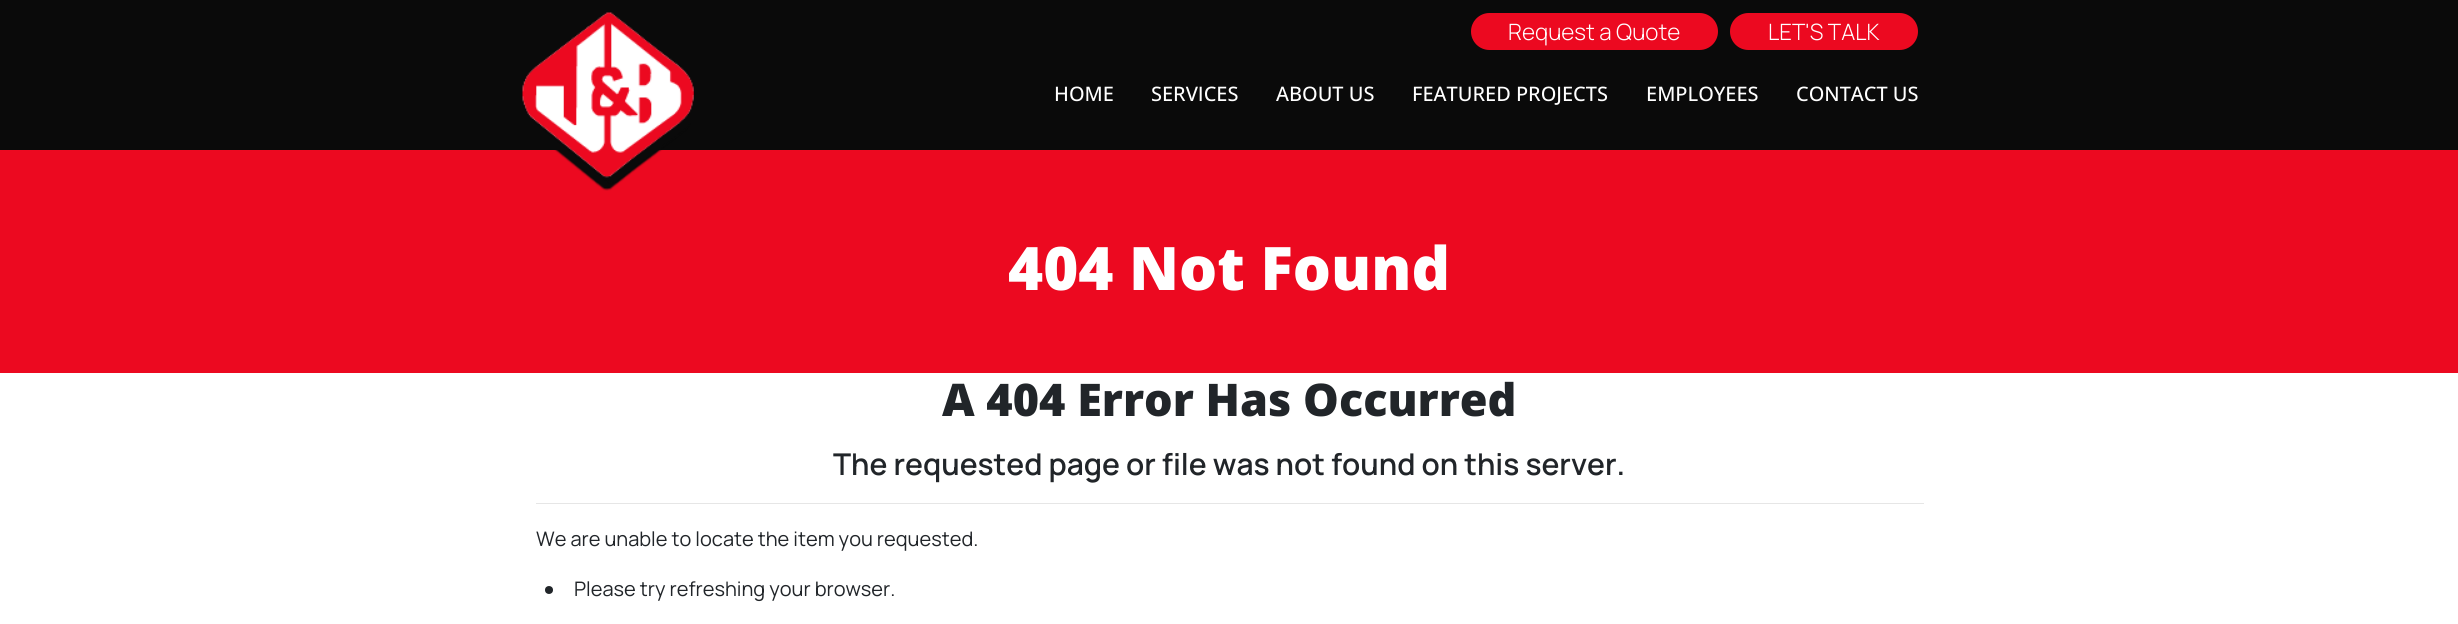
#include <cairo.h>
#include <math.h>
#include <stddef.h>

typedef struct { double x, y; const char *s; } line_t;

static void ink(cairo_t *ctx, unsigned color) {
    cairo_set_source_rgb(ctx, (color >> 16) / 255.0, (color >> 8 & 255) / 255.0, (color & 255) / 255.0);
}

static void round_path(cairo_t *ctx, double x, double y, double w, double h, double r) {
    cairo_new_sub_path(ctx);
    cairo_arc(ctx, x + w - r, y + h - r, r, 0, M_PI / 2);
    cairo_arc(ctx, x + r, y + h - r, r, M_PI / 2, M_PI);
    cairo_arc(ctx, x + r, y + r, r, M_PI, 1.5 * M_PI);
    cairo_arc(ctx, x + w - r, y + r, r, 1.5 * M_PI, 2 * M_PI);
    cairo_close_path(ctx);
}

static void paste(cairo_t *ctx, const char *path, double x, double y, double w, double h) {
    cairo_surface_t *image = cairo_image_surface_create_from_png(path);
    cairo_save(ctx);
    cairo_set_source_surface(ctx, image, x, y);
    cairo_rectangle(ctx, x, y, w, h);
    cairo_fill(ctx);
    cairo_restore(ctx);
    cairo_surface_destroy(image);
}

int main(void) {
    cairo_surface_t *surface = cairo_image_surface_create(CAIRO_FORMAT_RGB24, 2458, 624);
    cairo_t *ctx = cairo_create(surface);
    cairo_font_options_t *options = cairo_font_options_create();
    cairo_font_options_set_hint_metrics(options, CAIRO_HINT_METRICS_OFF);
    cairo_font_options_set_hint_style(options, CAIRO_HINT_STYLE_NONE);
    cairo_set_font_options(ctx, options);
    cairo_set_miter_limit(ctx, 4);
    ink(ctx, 0xFFFFFF);
    cairo_paint(ctx);
    ink(ctx, 0x0A0A0A);
    cairo_rectangle(ctx, 0, 0, 2458, 150);
    cairo_fill(ctx);
    ink(ctx, 0xEC0920);
    round_path(ctx, 1471, 13, 247, 37, 18.5);
    cairo_fill(ctx);
    cairo_select_font_face(ctx, "Manrope Light", CAIRO_FONT_SLANT_NORMAL, CAIRO_FONT_WEIGHT_NORMAL);
    cairo_set_font_size(ctx, 22.5);
    ink(ctx, 0xFFFFFF);
    cairo_move_to(ctx, 1508, 40);
    cairo_show_text(ctx, "Request a Quote");
    ink(ctx, 0xEC0920);
    round_path(ctx, 1730, 13, 188, 37, 18.5);
    cairo_fill(ctx);
    ink(ctx, 0xFFFFFF);
    cairo_move_to(ctx, 1768, 40);
    cairo_show_text(ctx, "LET'S TALK");
    ink(ctx, 0xEC0920);
    cairo_rectangle(ctx, 0, 150, 2458, 223);
    cairo_fill(ctx);
    paste(ctx, "media/1.png", 522, 12, 172, 179);
    cairo_select_font_face(ctx, "Open Sans Medium", CAIRO_FONT_SLANT_NORMAL, CAIRO_FONT_WEIGHT_NORMAL);
    cairo_set_font_size(ctx, 20);
    ink(ctx, 0xFFFFFF);
    {
        static const line_t items[] = {
            {1054, 101, "HOME"},
            {1151, 101, "SERVICES"},
            {1276, 101, "ABOUT US"},
            {1412, 101, "FEATURED PROJECTS"},
            {1646, 101, "EMPLOYEES"},
            {1796, 101, "CONTACT US"},
        };
        for (size_t i = 0; i < sizeof items / sizeof *items; i++) {
            cairo_move_to(ctx, items[i].x, items[i].y);
            cairo_show_text(ctx, items[i].s);
        }
    }
    cairo_select_font_face(ctx, "Open Sans ExtraBold", CAIRO_FONT_SLANT_NORMAL, CAIRO_FONT_WEIGHT_NORMAL);
    cairo_set_font_size(ctx, 60);
    cairo_move_to(ctx, 1008, 290);
    cairo_show_text(ctx, "404 Not Found");
    cairo_set_font_size(ctx, 45);
    ink(ctx, 0x212529);
    cairo_move_to(ctx, 942, 416);
    cairo_show_text(ctx, "A 404 Error Has Occurred");
    cairo_select_font_face(ctx, "Manrope SemiBold", CAIRO_FONT_SLANT_NORMAL, CAIRO_FONT_WEIGHT_NORMAL);
    cairo_set_font_size(ctx, 30);
    cairo_move_to(ctx, 833, 475);
    cairo_show_text(ctx, "The requested page or file was not found on this server.");
    ink(ctx, 0xE6E6E6);
    cairo_rectangle(ctx, 536, 503, 1388, 1);
    cairo_fill(ctx);
    cairo_select_font_face(ctx, "Manrope", CAIRO_FONT_SLANT_NORMAL, CAIRO_FONT_WEIGHT_NORMAL);
    cairo_set_font_size(ctx, 20);
    ink(ctx, 0x212529);
    cairo_move_to(ctx, 536, 546);
    cairo_show_text(ctx, "We are unable to locate the item you requested.");
    cairo_new_path(ctx);
    cairo_arc(ctx, 549, 590, 4, 0, 2 * M_PI);
    cairo_fill(ctx);
    cairo_move_to(ctx, 574, 596);
    cairo_show_text(ctx, "Please try refreshing your browser.");
    cairo_surface_write_to_png(surface, "image.png");
    cairo_font_options_destroy(options);
    cairo_destroy(ctx);
    cairo_surface_destroy(surface);
    return 0;
}
